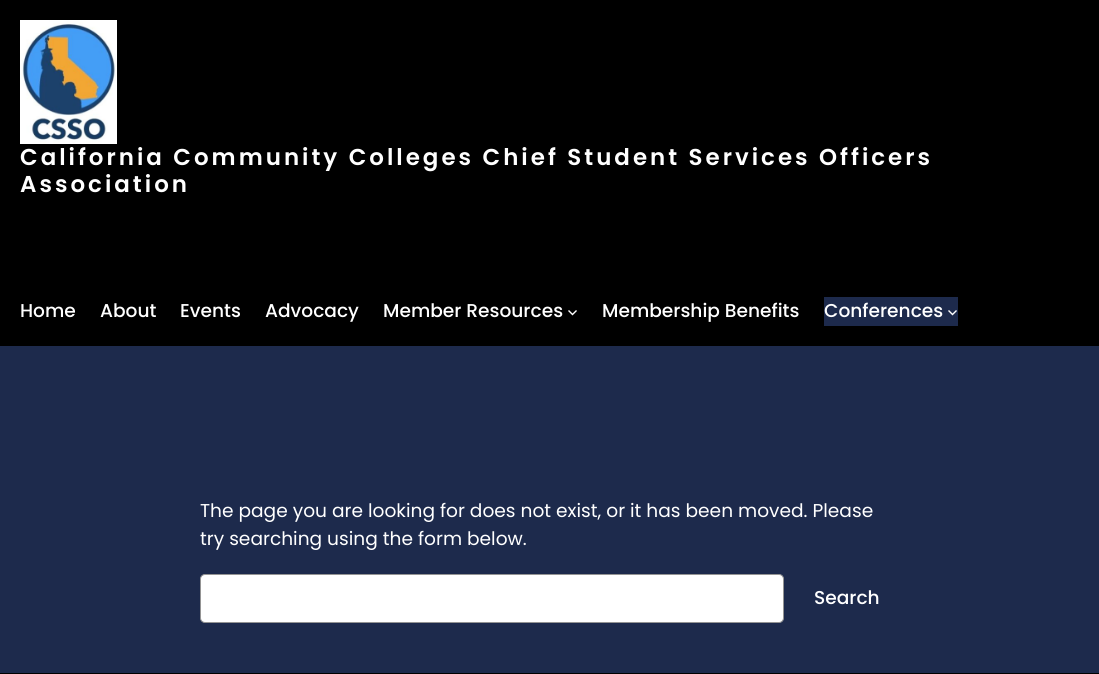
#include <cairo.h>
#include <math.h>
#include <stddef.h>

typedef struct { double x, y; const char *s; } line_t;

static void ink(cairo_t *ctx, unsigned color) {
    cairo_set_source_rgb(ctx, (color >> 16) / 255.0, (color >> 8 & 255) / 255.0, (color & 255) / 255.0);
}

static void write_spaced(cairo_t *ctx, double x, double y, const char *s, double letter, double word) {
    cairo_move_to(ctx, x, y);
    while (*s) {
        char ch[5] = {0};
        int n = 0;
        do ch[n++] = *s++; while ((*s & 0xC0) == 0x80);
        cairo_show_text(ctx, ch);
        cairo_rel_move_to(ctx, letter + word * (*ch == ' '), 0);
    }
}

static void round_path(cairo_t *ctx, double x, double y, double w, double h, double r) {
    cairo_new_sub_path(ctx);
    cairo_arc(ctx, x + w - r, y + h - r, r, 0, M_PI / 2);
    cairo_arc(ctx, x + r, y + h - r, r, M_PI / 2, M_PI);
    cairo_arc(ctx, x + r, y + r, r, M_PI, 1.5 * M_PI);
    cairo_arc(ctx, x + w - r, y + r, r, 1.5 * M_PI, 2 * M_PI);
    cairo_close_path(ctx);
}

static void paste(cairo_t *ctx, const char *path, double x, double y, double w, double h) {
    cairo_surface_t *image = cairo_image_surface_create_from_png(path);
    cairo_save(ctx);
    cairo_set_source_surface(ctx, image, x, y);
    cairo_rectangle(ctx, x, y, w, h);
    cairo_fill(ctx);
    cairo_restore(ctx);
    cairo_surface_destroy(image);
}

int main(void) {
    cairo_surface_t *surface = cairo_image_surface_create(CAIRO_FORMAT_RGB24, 1099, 674);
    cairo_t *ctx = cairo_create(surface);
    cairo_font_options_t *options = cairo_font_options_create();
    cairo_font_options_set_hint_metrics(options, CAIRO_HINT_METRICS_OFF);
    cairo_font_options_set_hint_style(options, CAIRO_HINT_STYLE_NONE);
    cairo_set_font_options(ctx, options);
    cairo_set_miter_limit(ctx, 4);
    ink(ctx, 0x1D2A4C);
    cairo_paint(ctx);
    ink(ctx, 0x000000);
    cairo_rectangle(ctx, 0, 0, 1099, 346);
    cairo_fill(ctx);
    paste(ctx, "media/1.png", 20, 20, 97, 124);
    cairo_select_font_face(ctx, "Poppins SemiBold", CAIRO_FONT_SLANT_NORMAL, CAIRO_FONT_WEIGHT_NORMAL);
    cairo_set_font_size(ctx, 22.95);
    ink(ctx, 0xFFFFFF);
    write_spaced(ctx, 20, 165, "California Community Colleges Chief Student Services Officers", 3, 0);
    write_spaced(ctx, 20, 192, "Association", 3, 0);
    cairo_select_font_face(ctx, "Poppins Medium", CAIRO_FONT_SLANT_NORMAL, CAIRO_FONT_WEIGHT_NORMAL);
    cairo_set_font_size(ctx, 18.6);
    {
        static const line_t items[] = {
            {20, 317, "Home"},
            {100, 317, "About"},
            {180, 317, "Events"},
            {265, 317, "Advocacy"},
            {383, 317, "Member Resources"},
        };
        for (size_t i = 0; i < sizeof items / sizeof *items; i++) {
            cairo_move_to(ctx, items[i].x, items[i].y);
            cairo_show_text(ctx, items[i].s);
        }
    }
    cairo_new_path(ctx);
    cairo_move_to(ctx, 568.5, 310.5);
    cairo_line_to(ctx, 572.5, 314.5);
    cairo_line_to(ctx, 576.5, 310.5);
    cairo_set_line_width(ctx, 1.4);
    cairo_stroke(ctx);
    cairo_move_to(ctx, 602, 317);
    cairo_show_text(ctx, "Membership Benefits");
    ink(ctx, 0x1D2A4C);
    cairo_rectangle(ctx, 824, 297, 134, 29);
    cairo_fill(ctx);
    ink(ctx, 0xFFFFFF);
    cairo_move_to(ctx, 824, 317);
    cairo_show_text(ctx, "Conferences");
    cairo_new_path(ctx);
    cairo_move_to(ctx, 948.5, 310.5);
    cairo_line_to(ctx, 952.5, 314.5);
    cairo_line_to(ctx, 956.5, 310.5);
    cairo_stroke(ctx);
    cairo_select_font_face(ctx, "Poppins", CAIRO_FONT_SLANT_NORMAL, CAIRO_FONT_WEIGHT_NORMAL);
    cairo_move_to(ctx, 200, 517);
    cairo_show_text(ctx, "The page you are looking for does not exist, or it has been moved. Please");
    cairo_move_to(ctx, 200, 545);
    cairo_show_text(ctx, "try searching using the form below.");
    round_path(ctx, 200.5, 574.5, 583, 48, 4.5);
    cairo_fill_preserve(ctx);
    ink(ctx, 0x949494);
    cairo_set_line_width(ctx, 1);
    cairo_stroke(ctx);
    cairo_select_font_face(ctx, "Poppins Medium", CAIRO_FONT_SLANT_NORMAL, CAIRO_FONT_WEIGHT_NORMAL);
    ink(ctx, 0xFFFFFF);
    cairo_move_to(ctx, 814, 604);
    cairo_show_text(ctx, "Search");
    ink(ctx, 0x000000);
    cairo_rectangle(ctx, 0, 673, 1099, 1);
    cairo_fill(ctx);
    cairo_surface_write_to_png(surface, "image.png");
    cairo_font_options_destroy(options);
    cairo_destroy(ctx);
    cairo_surface_destroy(surface);
    return 0;
}
